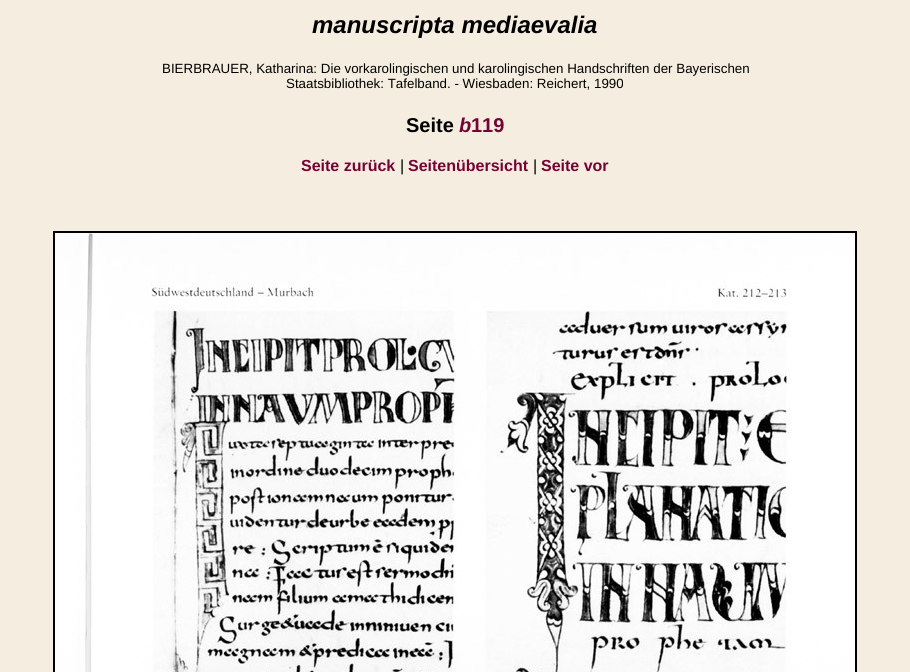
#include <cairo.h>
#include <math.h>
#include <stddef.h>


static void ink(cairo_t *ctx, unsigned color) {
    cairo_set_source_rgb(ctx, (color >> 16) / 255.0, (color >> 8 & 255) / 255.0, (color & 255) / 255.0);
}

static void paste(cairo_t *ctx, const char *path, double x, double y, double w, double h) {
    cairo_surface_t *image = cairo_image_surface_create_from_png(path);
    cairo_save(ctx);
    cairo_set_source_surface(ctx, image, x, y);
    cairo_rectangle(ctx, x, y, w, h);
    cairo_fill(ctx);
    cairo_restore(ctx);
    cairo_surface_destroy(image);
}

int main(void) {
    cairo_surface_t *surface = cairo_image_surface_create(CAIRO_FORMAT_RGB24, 910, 672);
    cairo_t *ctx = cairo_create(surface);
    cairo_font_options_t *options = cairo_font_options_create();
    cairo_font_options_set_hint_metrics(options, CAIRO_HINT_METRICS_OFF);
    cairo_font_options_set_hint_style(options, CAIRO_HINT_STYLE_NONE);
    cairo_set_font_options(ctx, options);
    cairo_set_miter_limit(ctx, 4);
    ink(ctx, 0xF5EDE0);
    cairo_paint(ctx);
    cairo_select_font_face(ctx, "Liberation Sans", CAIRO_FONT_SLANT_ITALIC, CAIRO_FONT_WEIGHT_BOLD);
    cairo_set_font_size(ctx, 24);
    ink(ctx, 0x000000);
    cairo_move_to(ctx, 312, 33);
    cairo_show_text(ctx, "manuscripta mediaevalia");
    cairo_select_font_face(ctx, "Liberation Sans", CAIRO_FONT_SLANT_NORMAL, CAIRO_FONT_WEIGHT_NORMAL);
    cairo_set_font_size(ctx, 13.35);
    cairo_move_to(ctx, 162, 73);
    cairo_show_text(ctx, "BIERBRAUER, Katharina: Die vorkarolingischen und karolingischen Handschriften der Bayerischen");
    cairo_move_to(ctx, 286, 88);
    cairo_show_text(ctx, "Staatsbibliothek: Tafelband. - Wiesbaden: Reichert, 1990");
    cairo_select_font_face(ctx, "Liberation Sans", CAIRO_FONT_SLANT_NORMAL, CAIRO_FONT_WEIGHT_BOLD);
    cairo_set_font_size(ctx, 20);
    cairo_move_to(ctx, 406, 132);
    cairo_show_text(ctx, "Seite");
    cairo_select_font_face(ctx, "Liberation Sans", CAIRO_FONT_SLANT_ITALIC, CAIRO_FONT_WEIGHT_BOLD);
    ink(ctx, 0x730433);
    cairo_move_to(ctx, 459, 132);
    cairo_show_text(ctx, "b");
    cairo_select_font_face(ctx, "Liberation Sans", CAIRO_FONT_SLANT_NORMAL, CAIRO_FONT_WEIGHT_BOLD);
    cairo_move_to(ctx, 471, 132);
    cairo_show_text(ctx, "119");
    cairo_set_font_size(ctx, 16);
    cairo_move_to(ctx, 301, 171);
    cairo_show_text(ctx, "Seite zurück");
    cairo_select_font_face(ctx, "Liberation Sans", CAIRO_FONT_SLANT_NORMAL, CAIRO_FONT_WEIGHT_NORMAL);
    ink(ctx, 0x000000);
    cairo_move_to(ctx, 400, 171);
    cairo_show_text(ctx, "|");
    cairo_select_font_face(ctx, "Liberation Sans", CAIRO_FONT_SLANT_NORMAL, CAIRO_FONT_WEIGHT_BOLD);
    ink(ctx, 0x730433);
    cairo_move_to(ctx, 408, 171);
    cairo_show_text(ctx, "Seitenübersicht");
    cairo_select_font_face(ctx, "Liberation Sans", CAIRO_FONT_SLANT_NORMAL, CAIRO_FONT_WEIGHT_NORMAL);
    ink(ctx, 0x000000);
    cairo_move_to(ctx, 533, 171);
    cairo_show_text(ctx, "|");
    cairo_select_font_face(ctx, "Liberation Sans", CAIRO_FONT_SLANT_NORMAL, CAIRO_FONT_WEIGHT_BOLD);
    ink(ctx, 0x730433);
    cairo_move_to(ctx, 541, 171);
    cairo_show_text(ctx, "Seite vor");
    cairo_rectangle(ctx, 54, 232, 802, 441);
    ink(ctx, 0x000000);
    cairo_stroke(ctx);
    paste(ctx, "media/1.png", 55, 233, 800, 439);
    cairo_surface_write_to_png(surface, "image.png");
    cairo_font_options_destroy(options);
    cairo_destroy(ctx);
    cairo_surface_destroy(surface);
    return 0;
}
